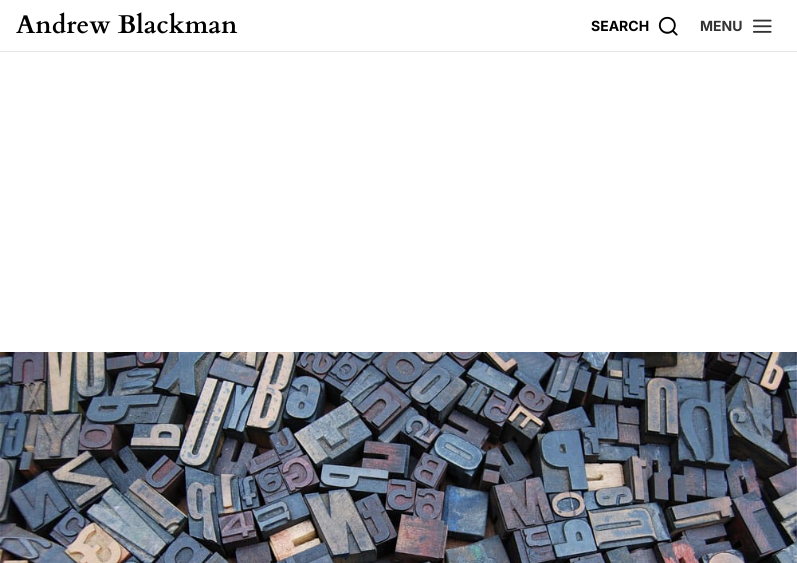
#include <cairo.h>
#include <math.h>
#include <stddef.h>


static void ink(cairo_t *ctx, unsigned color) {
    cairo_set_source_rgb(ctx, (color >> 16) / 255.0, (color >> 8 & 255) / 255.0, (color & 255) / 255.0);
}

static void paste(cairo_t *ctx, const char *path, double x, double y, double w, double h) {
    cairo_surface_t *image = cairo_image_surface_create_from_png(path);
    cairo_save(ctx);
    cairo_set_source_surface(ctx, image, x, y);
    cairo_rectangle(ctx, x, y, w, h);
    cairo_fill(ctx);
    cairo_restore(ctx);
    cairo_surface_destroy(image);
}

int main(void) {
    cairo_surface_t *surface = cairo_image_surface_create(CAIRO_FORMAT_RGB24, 797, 563);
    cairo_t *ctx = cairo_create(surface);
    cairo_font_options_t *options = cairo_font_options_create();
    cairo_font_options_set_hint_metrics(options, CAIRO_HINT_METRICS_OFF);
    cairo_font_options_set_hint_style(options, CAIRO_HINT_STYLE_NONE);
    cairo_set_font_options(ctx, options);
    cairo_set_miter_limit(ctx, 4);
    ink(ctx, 0xFFFFFF);
    cairo_paint(ctx);
    ink(ctx, 0xE6E6E6);
    cairo_rectangle(ctx, 0, 51, 797, 1);
    cairo_fill(ctx);
    cairo_select_font_face(ctx, "Cardo", CAIRO_FONT_SLANT_NORMAL, CAIRO_FONT_WEIGHT_BOLD);
    cairo_set_font_size(ctx, 25.6);
    ink(ctx, 0x000000);
    cairo_move_to(ctx, 16, 33);
    cairo_show_text(ctx, "Andrew Blackman");
    cairo_select_font_face(ctx, "Inter", CAIRO_FONT_SLANT_NORMAL, CAIRO_FONT_WEIGHT_BOLD);
    cairo_set_font_size(ctx, 14);
    cairo_move_to(ctx, 591, 31);
    cairo_show_text(ctx, "SEARCH");
    paste(ctx, "media/1.png", 658, 16, 20, 20);
    ink(ctx, 0x333333);
    cairo_move_to(ctx, 700, 31);
    cairo_show_text(ctx, "MENU");
    paste(ctx, "media/2.png", 752, 19, 20, 14);
    paste(ctx, "media/3.png", 0, 352, 797, 211);
    cairo_surface_write_to_png(surface, "image.png");
    cairo_font_options_destroy(options);
    cairo_destroy(ctx);
    cairo_surface_destroy(surface);
    return 0;
}
